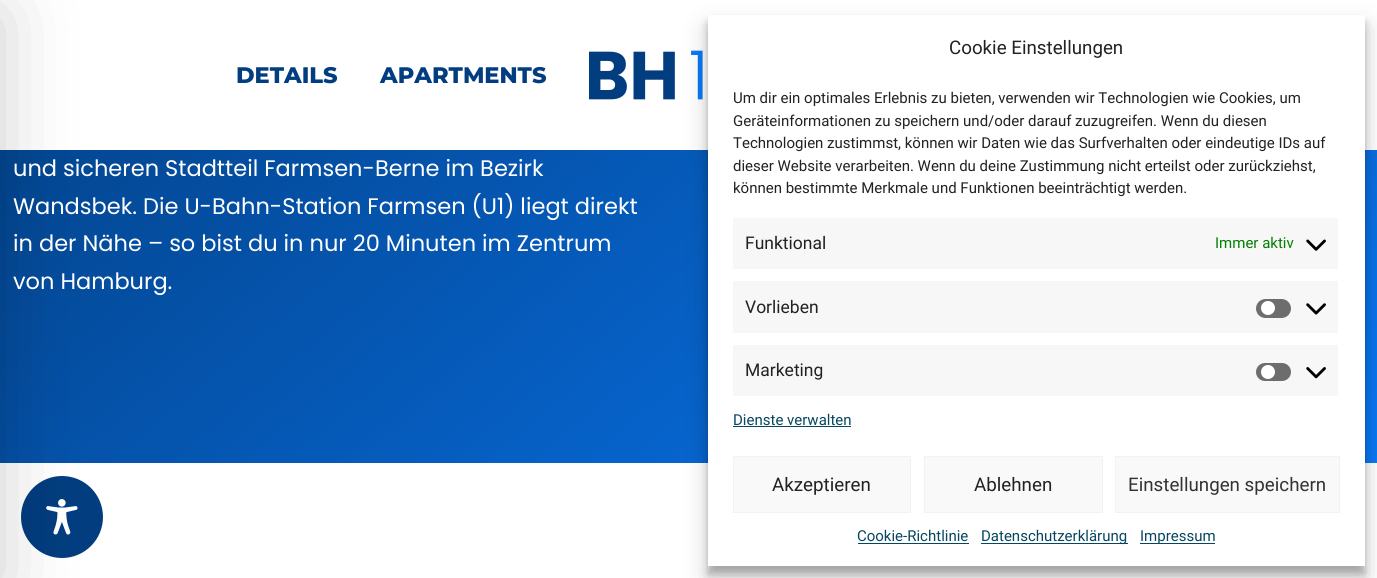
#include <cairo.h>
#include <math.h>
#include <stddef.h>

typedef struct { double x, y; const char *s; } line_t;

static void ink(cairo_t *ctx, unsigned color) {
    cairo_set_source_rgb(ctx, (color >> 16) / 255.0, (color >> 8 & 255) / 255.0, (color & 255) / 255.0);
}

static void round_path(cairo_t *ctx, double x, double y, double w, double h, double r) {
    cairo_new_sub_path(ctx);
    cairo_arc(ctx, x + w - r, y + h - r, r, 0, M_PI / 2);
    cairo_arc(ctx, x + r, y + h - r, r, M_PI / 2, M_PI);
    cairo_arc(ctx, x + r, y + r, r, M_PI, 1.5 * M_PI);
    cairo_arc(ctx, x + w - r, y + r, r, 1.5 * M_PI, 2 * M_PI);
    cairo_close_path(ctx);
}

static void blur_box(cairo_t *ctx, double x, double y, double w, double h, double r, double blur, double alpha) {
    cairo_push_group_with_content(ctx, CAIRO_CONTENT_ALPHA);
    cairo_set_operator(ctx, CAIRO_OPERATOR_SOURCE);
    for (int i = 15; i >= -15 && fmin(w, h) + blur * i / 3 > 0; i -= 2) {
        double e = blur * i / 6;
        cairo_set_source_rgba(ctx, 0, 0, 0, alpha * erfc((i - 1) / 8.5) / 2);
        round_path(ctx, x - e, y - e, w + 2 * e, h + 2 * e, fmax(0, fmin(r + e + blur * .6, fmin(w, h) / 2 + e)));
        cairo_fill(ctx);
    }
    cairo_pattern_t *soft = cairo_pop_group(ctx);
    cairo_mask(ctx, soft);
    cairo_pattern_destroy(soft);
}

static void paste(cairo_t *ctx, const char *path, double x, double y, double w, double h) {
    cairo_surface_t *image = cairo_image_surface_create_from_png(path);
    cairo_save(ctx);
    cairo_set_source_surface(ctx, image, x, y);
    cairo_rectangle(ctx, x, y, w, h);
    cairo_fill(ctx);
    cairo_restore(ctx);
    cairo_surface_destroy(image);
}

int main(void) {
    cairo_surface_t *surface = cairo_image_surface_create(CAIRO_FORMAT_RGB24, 1377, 578);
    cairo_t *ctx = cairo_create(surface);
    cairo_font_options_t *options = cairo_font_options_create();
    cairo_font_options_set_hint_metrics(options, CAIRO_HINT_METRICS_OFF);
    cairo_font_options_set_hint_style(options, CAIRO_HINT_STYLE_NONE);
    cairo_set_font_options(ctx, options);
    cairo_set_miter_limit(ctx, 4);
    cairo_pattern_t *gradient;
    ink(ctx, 0xFFFFFF);
    cairo_paint(ctx);
    gradient = cairo_pattern_create_linear(263, -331, 1114, 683);
    cairo_pattern_add_color_stop_rgba(gradient, 0, 0.008, 0.239, 0.498, 1);
    cairo_pattern_add_color_stop_rgba(gradient, 1, 0.035, 0.471, 0.961, 1);
    cairo_set_source(ctx, gradient);
    cairo_pattern_destroy(gradient);
    cairo_rectangle(ctx, 0, 150, 1377, 313);
    cairo_fill(ctx);
    ink(ctx, 0x023D7F);
    cairo_arc(ctx, 62, 517, 41, 0, 2 * M_PI);
    cairo_fill(ctx);
    paste(ctx, "media/5.png", 46, 499, 32, 36);
    ink(ctx, 0x000000);
    blur_box(ctx, -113, 13, 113, 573, 0, 37.5, 0.2);
    paste(ctx, "media/4.png", 589, 50, 114, 50);
    blur_box(ctx, 708, 23, 657, 551, 0, 4, 0.23);
    blur_box(ctx, 708, 28, 657, 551, 0, 12.5, 0.19);
    ink(ctx, 0xFFFFFF);
    cairo_rectangle(ctx, 708, 15, 657, 551);
    cairo_fill(ctx);
    cairo_select_font_face(ctx, "Roboto", CAIRO_FONT_SLANT_NORMAL, CAIRO_FONT_WEIGHT_NORMAL);
    cairo_set_font_size(ctx, 18.75);
    ink(ctx, 0x222222);
    cairo_move_to(ctx, 949, 54);
    cairo_show_text(ctx, "Cookie Einstellungen");
    cairo_set_font_size(ctx, 15);
    {
        static const line_t items[] = {
            {733, 103, "Um dir ein optimales Erlebnis zu bieten, verwenden wir Technologien wie Cookies, um"},
            {733, 126, "Geräteinformationen zu speichern und/oder darauf zuzugreifen. Wenn du diesen"},
            {733, 148, "Technologien zustimmst, können wir Daten wie das Surfverhalten oder eindeutige IDs auf"},
            {733, 171, "dieser Website verarbeiten. Wenn du deine Zustimmung nicht erteilst oder zurückziehst,"},
            {733, 193, "können bestimmte Merkmale und Funktionen beeinträchtigt werden."},
        };
        for (size_t i = 0; i < sizeof items / sizeof *items; i++) {
            cairo_move_to(ctx, items[i].x, items[i].y);
            cairo_show_text(ctx, items[i].s);
        }
    }
    ink(ctx, 0xF7F7F7);
    cairo_rectangle(ctx, 733, 218, 605, 51);
    cairo_fill(ctx);
    cairo_set_font_size(ctx, 17.5);
    ink(ctx, 0x222222);
    cairo_move_to(ctx, 745, 249);
    cairo_show_text(ctx, "Funktional");
    cairo_set_font_size(ctx, 15);
    ink(ctx, 0x008000);
    cairo_move_to(ctx, 1215, 248);
    cairo_show_text(ctx, "Immer aktiv");
    paste(ctx, "media/1.png", 1306, 239, 20, 12);
    ink(ctx, 0xF7F7F7);
    cairo_rectangle(ctx, 733, 281, 605, 52);
    cairo_fill(ctx);
    cairo_set_font_size(ctx, 17.5);
    ink(ctx, 0x222222);
    cairo_move_to(ctx, 745, 313);
    cairo_show_text(ctx, "Vorlieben");
    ink(ctx, 0x6E6D6D);
    round_path(ctx, 1256, 299, 35, 19, 9.5);
    cairo_fill(ctx);
    ink(ctx, 0xFFFFFF);
    cairo_arc(ctx, 1268, 308, 7, 0, 2 * M_PI);
    cairo_fill(ctx);
    paste(ctx, "media/2.png", 1306, 303, 20, 12);
    ink(ctx, 0xF7F7F7);
    cairo_rectangle(ctx, 733, 345, 605, 51);
    cairo_fill(ctx);
    ink(ctx, 0x222222);
    cairo_move_to(ctx, 745, 376);
    cairo_show_text(ctx, "Marketing");
    ink(ctx, 0x6E6D6D);
    round_path(ctx, 1256, 363, 35, 18, 9);
    cairo_fill(ctx);
    ink(ctx, 0xFFFFFF);
    cairo_arc(ctx, 1268, 372, 7, 0, 2 * M_PI);
    cairo_fill(ctx);
    paste(ctx, "media/3.png", 1306, 367, 20, 12);
    cairo_set_font_size(ctx, 15);
    ink(ctx, 0x064661);
    cairo_move_to(ctx, 733, 425);
    cairo_show_text(ctx, "Dienste verwalten");
    cairo_rectangle(ctx, 733, 426, 118, 1);
    cairo_fill(ctx);
    ink(ctx, 0xF9F9F9);
    cairo_rectangle(ctx, 733.5, 456.5, 177, 56);
    cairo_fill_preserve(ctx);
    ink(ctx, 0xF2F2F2);
    cairo_set_line_width(ctx, 1);
    cairo_stroke(ctx);
    cairo_set_font_size(ctx, 18.75);
    ink(ctx, 0x222222);
    cairo_move_to(ctx, 772, 491);
    cairo_show_text(ctx, "Akzeptieren");
    ink(ctx, 0xF9F9F9);
    cairo_rectangle(ctx, 924.5, 456.5, 178, 56);
    cairo_fill_preserve(ctx);
    ink(ctx, 0xF2F2F2);
    cairo_stroke(ctx);
    ink(ctx, 0x222222);
    cairo_move_to(ctx, 974, 491);
    cairo_show_text(ctx, "Ablehnen");
    ink(ctx, 0xF9F9F9);
    cairo_rectangle(ctx, 1115.5, 456.5, 224, 56);
    cairo_fill_preserve(ctx);
    ink(ctx, 0xF2F2F2);
    cairo_stroke(ctx);
    ink(ctx, 0x333333);
    cairo_move_to(ctx, 1128, 491);
    cairo_show_text(ctx, "Einstellungen speichern");
    cairo_set_font_size(ctx, 15);
    ink(ctx, 0x064661);
    cairo_move_to(ctx, 857, 541);
    cairo_show_text(ctx, "Cookie-Richtlinie");
    cairo_rectangle(ctx, 858, 543, 111, 1);
    cairo_fill(ctx);
    cairo_rectangle(ctx, 981, 543, 147, 1);
    cairo_fill(ctx);
    cairo_move_to(ctx, 981, 541);
    cairo_show_text(ctx, "Datenschutzerklärung");
    cairo_rectangle(ctx, 1140, 543, 75, 1);
    cairo_fill(ctx);
    cairo_move_to(ctx, 1140, 541);
    cairo_show_text(ctx, "Impressum");
    cairo_select_font_face(ctx, "Montserrat ExtraBold", CAIRO_FONT_SLANT_NORMAL, CAIRO_FONT_WEIGHT_NORMAL);
    cairo_set_font_size(ctx, 22.5);
    ink(ctx, 0x023D7F);
    cairo_move_to(ctx, 236, 83);
    cairo_show_text(ctx, "DETAILS");
    cairo_move_to(ctx, 380, 83);
    cairo_show_text(ctx, "APARTMENTS");
    cairo_select_font_face(ctx, "Poppins", CAIRO_FONT_SLANT_NORMAL, CAIRO_FONT_WEIGHT_NORMAL);
    ink(ctx, 0xFFFFFF);
    {
        static const line_t items[] = {
            {13, 176, "und sicheren Stadtteil Farmsen-Berne im Bezirk"},
            {13, 214, "Wandsbek. Die U-Bahn-Station Farmsen (U1) liegt direkt"},
            {13, 251, "in der Nähe – so bist du in nur 20 Minuten im Zentrum"},
            {13, 289, "von Hamburg."},
        };
        for (size_t i = 0; i < sizeof items / sizeof *items; i++) {
            cairo_move_to(ctx, items[i].x, items[i].y);
            cairo_show_text(ctx, items[i].s);
        }
    }
    cairo_surface_write_to_png(surface, "image.png");
    cairo_font_options_destroy(options);
    cairo_destroy(ctx);
    cairo_surface_destroy(surface);
    return 0;
}
